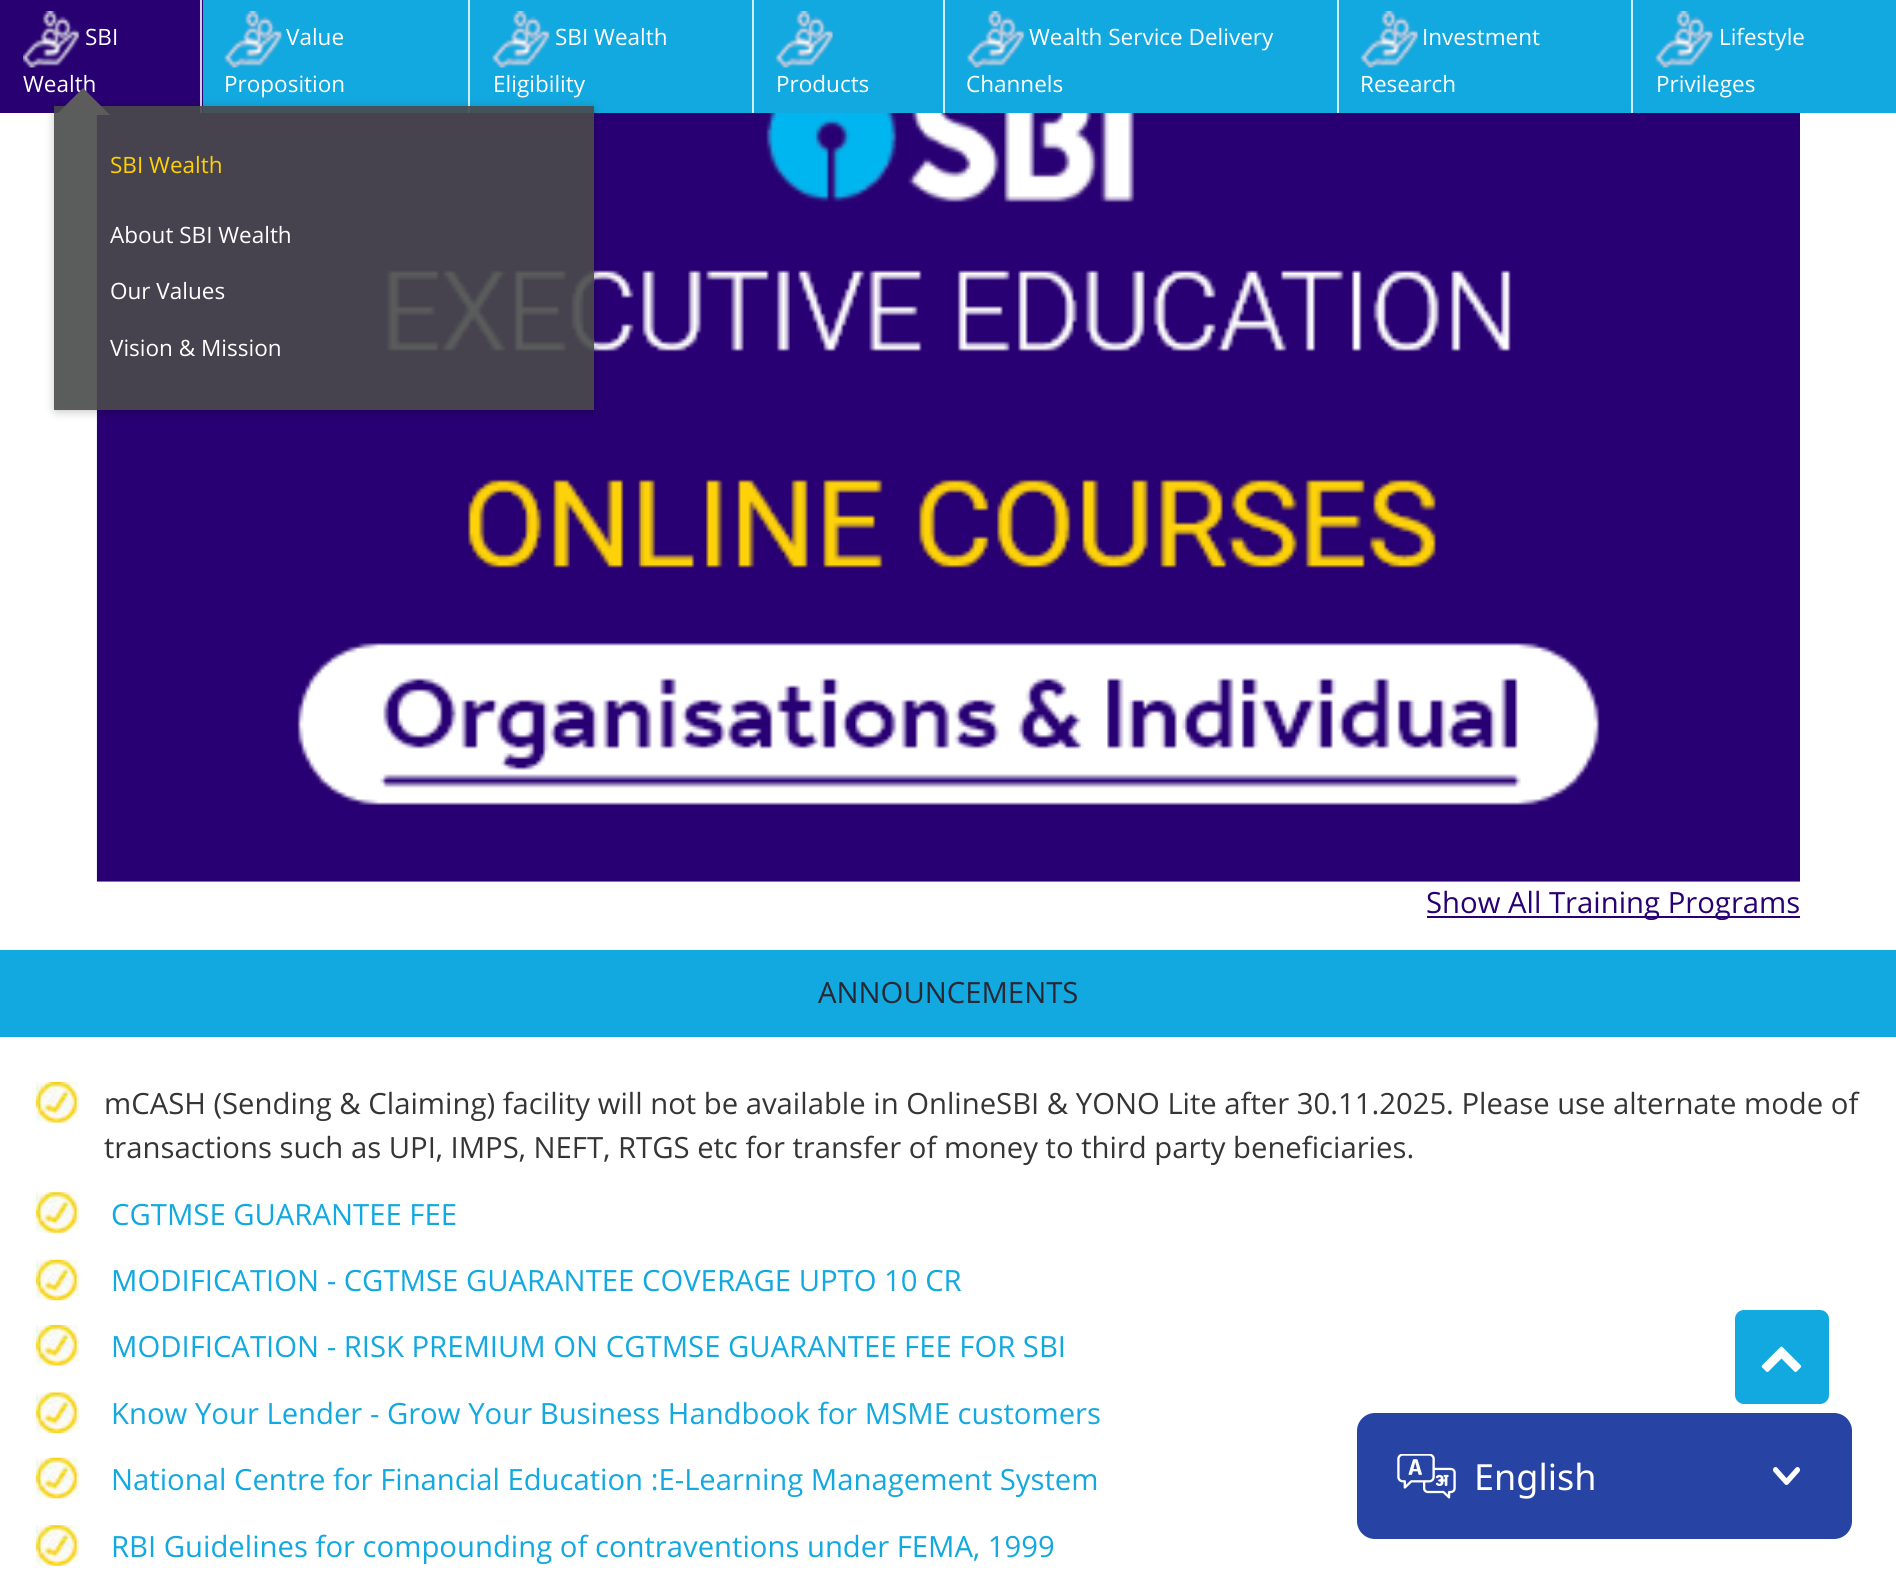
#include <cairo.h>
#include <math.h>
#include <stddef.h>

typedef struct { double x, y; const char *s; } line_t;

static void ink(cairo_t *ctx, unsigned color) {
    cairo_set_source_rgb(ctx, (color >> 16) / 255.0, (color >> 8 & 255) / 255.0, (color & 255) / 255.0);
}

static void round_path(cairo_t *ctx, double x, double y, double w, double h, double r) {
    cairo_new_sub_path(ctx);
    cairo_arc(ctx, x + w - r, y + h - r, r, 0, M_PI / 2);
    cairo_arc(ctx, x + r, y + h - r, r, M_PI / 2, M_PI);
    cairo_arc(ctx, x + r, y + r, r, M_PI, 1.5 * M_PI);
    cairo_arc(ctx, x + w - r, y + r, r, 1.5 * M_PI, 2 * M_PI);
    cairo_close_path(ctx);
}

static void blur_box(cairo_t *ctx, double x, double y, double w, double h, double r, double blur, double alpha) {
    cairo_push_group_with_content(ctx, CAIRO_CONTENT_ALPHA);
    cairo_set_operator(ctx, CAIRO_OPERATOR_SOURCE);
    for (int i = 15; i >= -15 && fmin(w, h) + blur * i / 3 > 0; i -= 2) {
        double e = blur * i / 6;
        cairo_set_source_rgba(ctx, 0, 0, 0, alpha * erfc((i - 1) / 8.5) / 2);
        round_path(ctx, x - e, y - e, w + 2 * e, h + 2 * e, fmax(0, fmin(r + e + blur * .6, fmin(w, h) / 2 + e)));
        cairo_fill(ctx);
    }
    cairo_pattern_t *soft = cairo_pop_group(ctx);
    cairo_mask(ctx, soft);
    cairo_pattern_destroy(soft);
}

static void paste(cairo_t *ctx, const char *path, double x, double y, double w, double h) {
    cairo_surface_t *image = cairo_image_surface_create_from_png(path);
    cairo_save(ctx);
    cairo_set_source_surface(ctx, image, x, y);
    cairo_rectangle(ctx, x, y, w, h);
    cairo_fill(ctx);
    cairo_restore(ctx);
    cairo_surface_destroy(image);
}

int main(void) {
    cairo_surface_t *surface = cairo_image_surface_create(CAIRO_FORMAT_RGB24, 1896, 1583);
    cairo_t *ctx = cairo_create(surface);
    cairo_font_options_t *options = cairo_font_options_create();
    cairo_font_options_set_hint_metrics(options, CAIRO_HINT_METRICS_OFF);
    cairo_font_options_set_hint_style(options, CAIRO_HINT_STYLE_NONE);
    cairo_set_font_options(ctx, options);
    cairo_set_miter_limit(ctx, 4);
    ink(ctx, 0xFFFFFF);
    cairo_paint(ctx);
    ink(ctx, 0x12A8E0);
    cairo_rectangle(ctx, 203, 0, 265, 113);
    cairo_fill(ctx);
    ink(ctx, 0xD0EEF9);
    cairo_rectangle(ctx, 468, 0, 2, 113);
    cairo_fill(ctx);
    paste(ctx, "media/1.png", 224, 11, 58, 57);
    cairo_select_font_face(ctx, "Open Sans", CAIRO_FONT_SLANT_NORMAL, CAIRO_FONT_WEIGHT_NORMAL);
    cairo_set_font_size(ctx, 22.5);
    ink(ctx, 0xFFFFFF);
    cairo_move_to(ctx, 286, 45);
    cairo_show_text(ctx, "Value");
    cairo_move_to(ctx, 224, 92);
    cairo_show_text(ctx, "Proposition");
    ink(ctx, 0x12A8E0);
    cairo_rectangle(ctx, 470, 0, 282, 113);
    cairo_fill(ctx);
    ink(ctx, 0xD0EEF9);
    cairo_rectangle(ctx, 752, 0, 2, 113);
    cairo_fill(ctx);
    paste(ctx, "media/2.png", 492, 11, 58, 57);
    ink(ctx, 0xFFFFFF);
    cairo_move_to(ctx, 555, 45);
    cairo_show_text(ctx, "SBI Wealth");
    cairo_move_to(ctx, 493, 92);
    cairo_show_text(ctx, "Eligibility");
    ink(ctx, 0x12A8E0);
    cairo_rectangle(ctx, 945, 0, 392, 113);
    cairo_fill(ctx);
    ink(ctx, 0xD0EEF9);
    cairo_rectangle(ctx, 1337, 0, 2, 113);
    cairo_fill(ctx);
    paste(ctx, "media/3.png", 967, 11, 58, 57);
    ink(ctx, 0xFFFFFF);
    cairo_move_to(ctx, 1029, 45);
    cairo_show_text(ctx, "Wealth Service Delivery");
    cairo_move_to(ctx, 966, 92);
    cairo_show_text(ctx, "Channels");
    ink(ctx, 0x12A8E0);
    cairo_rectangle(ctx, 1339, 0, 557, 113);
    cairo_fill(ctx);
    paste(ctx, "media/1.png", 1655, 11, 58, 57);
    ink(ctx, 0xFFFFFF);
    cairo_move_to(ctx, 1719, 45);
    cairo_show_text(ctx, "Lifestyle");
    cairo_move_to(ctx, 1656, 92);
    cairo_show_text(ctx, "Privileges");
    ink(ctx, 0x280071);
    cairo_rectangle(ctx, 0, 0, 203, 113);
    cairo_fill(ctx);
    ink(ctx, 0xD4CCE3);
    cairo_rectangle(ctx, 200, 0, 2, 113);
    cairo_fill(ctx);
    paste(ctx, "media/4.png", 23, 11, 57, 57);
    ink(ctx, 0xFFFFFF);
    cairo_move_to(ctx, 85, 45);
    cairo_show_text(ctx, "SBI");
    cairo_move_to(ctx, 23, 92);
    cairo_show_text(ctx, "Wealth");
    paste(ctx, "media/7.png", 96, 113, 1704, 769);
    cairo_save(ctx);
    cairo_set_fill_rule(ctx, CAIRO_FILL_RULE_EVEN_ODD);
    cairo_new_path(ctx);
    cairo_move_to(ctx, 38, 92);
    cairo_line_to(ctx, 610, 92);
    cairo_line_to(ctx, 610, 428);
    cairo_line_to(ctx, 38, 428);
    cairo_close_path(ctx);
    cairo_move_to(ctx, 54, 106);
    cairo_line_to(ctx, 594, 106);
    cairo_line_to(ctx, 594, 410);
    cairo_line_to(ctx, 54, 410);
    cairo_close_path(ctx);
    cairo_clip(ctx);
    ink(ctx, 0x000000);
    blur_box(ctx, 56, 110, 536, 300, 0, 5.5, 0.3);
    cairo_restore(ctx);
    cairo_set_source_rgba(ctx, 0.29, 0.294, 0.294, 0.9);
    cairo_rectangle(ctx, 54, 106, 540, 304);
    cairo_fill(ctx);
    ink(ctx, 0x5C5C5C);
    cairo_new_path(ctx);
    cairo_move_to(ctx, 110, 115);
    cairo_line_to(ctx, 56, 115);
    cairo_line_to(ctx, 83, 88);
    cairo_close_path(ctx);
    cairo_fill(ctx);
    ink(ctx, 0xFFD100);
    cairo_move_to(ctx, 110, 173);
    cairo_show_text(ctx, "SBI Wealth");
    ink(ctx, 0xFFFFFF);
    {
        static const line_t items[] = {
            {110, 243, "About SBI Wealth"},
            {110, 299, "Our Values"},
            {110, 356, "Vision & Mission"},
        };
        for (size_t i = 0; i < sizeof items / sizeof *items; i++) {
            cairo_move_to(ctx, items[i].x, items[i].y);
            cairo_show_text(ctx, items[i].s);
        }
    }
    ink(ctx, 0x12A8E0);
    cairo_rectangle(ctx, 754, 0, 189, 113);
    cairo_fill(ctx);
    ink(ctx, 0xD0EEF9);
    cairo_rectangle(ctx, 943, 0, 2, 113);
    cairo_fill(ctx);
    paste(ctx, "media/5.png", 775, 11, 58, 57);
    ink(ctx, 0xFFFFFF);
    cairo_move_to(ctx, 776, 92);
    cairo_show_text(ctx, "Products");
    ink(ctx, 0xD0EEF9);
    cairo_rectangle(ctx, 1631, 0, 2, 113);
    cairo_fill(ctx);
    paste(ctx, "media/6.png", 1360, 11, 58, 57);
    ink(ctx, 0xFFFFFF);
    cairo_move_to(ctx, 1422, 45);
    cairo_show_text(ctx, "Investment");
    cairo_move_to(ctx, 1360, 92);
    cairo_show_text(ctx, "Research");
    ink(ctx, 0x280071);
    cairo_rectangle(ctx, 1427, 916, 373, 2);
    cairo_fill(ctx);
    cairo_set_font_size(ctx, 29.25);
    cairo_move_to(ctx, 1426, 913);
    cairo_show_text(ctx, "Show All Training Programs");
    ink(ctx, 0x12A8E0);
    cairo_rectangle(ctx, 0, 950, 1896, 87);
    cairo_fill(ctx);
    ink(ctx, 0x272833);
    cairo_move_to(ctx, 818, 1003);
    cairo_show_text(ctx, "ANNOUNCEMENTS");
    paste(ctx, "media/8.png", 36, 1082, 43, 41);
    ink(ctx, 0x353535);
    cairo_move_to(ctx, 104, 1114);
    cairo_show_text(ctx, "mCASH (Sending & Claiming) facility will not be available in OnlineSBI & YONO Lite after 30.11.2025. Please use alternate mode of");
    cairo_move_to(ctx, 104, 1158);
    cairo_show_text(ctx, "transactions such as UPI, IMPS, NEFT, RTGS etc for transfer of money to third party beneficiaries.");
    paste(ctx, "media/9.png", 36, 1192, 43, 41);
    ink(ctx, 0x12A8E0);
    cairo_move_to(ctx, 111, 1225);
    cairo_show_text(ctx, "CGTMSE GUARANTEE FEE");
    paste(ctx, "media/10.png", 36, 1259, 43, 42);
    cairo_move_to(ctx, 111, 1291);
    cairo_show_text(ctx, "MODIFICATION - CGTMSE GUARANTEE COVERAGE UPTO 10 CR");
    paste(ctx, "media/8.png", 36, 1325, 43, 41);
    cairo_move_to(ctx, 111, 1357);
    cairo_show_text(ctx, "MODIFICATION - RISK PREMIUM ON CGTMSE GUARANTEE FEE FOR SBI");
    paste(ctx, "media/11.png", 36, 1392, 43, 41);
    cairo_move_to(ctx, 111, 1424);
    cairo_show_text(ctx, "Know Your Lender - Grow Your Business Handbook for MSME customers");
    paste(ctx, "media/10.png", 36, 1457, 43, 42);
    cairo_move_to(ctx, 111, 1490);
    cairo_show_text(ctx, "National Centre for Financial Education :E-Learning Management System");
    paste(ctx, "media/12.png", 36, 1525, 43, 41);
    cairo_move_to(ctx, 111, 1557);
    cairo_show_text(ctx, "RBI Guidelines for compounding of contraventions under FEMA, 1999");
    round_path(ctx, 1735, 1310, 94, 94, 9);
    cairo_fill(ctx);
    paste(ctx, "media/13.png", 1761, 1346, 41, 26);
    ink(ctx, 0x2743A3);
    round_path(ctx, 1357, 1413, 495, 126, 18);
    cairo_fill(ctx);
    paste(ctx, "media/14.png", 1397, 1454, 59, 45);
    cairo_select_font_face(ctx, "Noto Sans", CAIRO_FONT_SLANT_NORMAL, CAIRO_FONT_WEIGHT_NORMAL);
    cairo_set_font_size(ctx, 36);
    ink(ctx, 0xFFFFFF);
    cairo_move_to(ctx, 1474, 1490);
    cairo_show_text(ctx, "English");
    paste(ctx, "media/15.png", 1773, 1467, 27, 18);
    cairo_surface_write_to_png(surface, "image.png");
    cairo_font_options_destroy(options);
    cairo_destroy(ctx);
    cairo_surface_destroy(surface);
    return 0;
}
